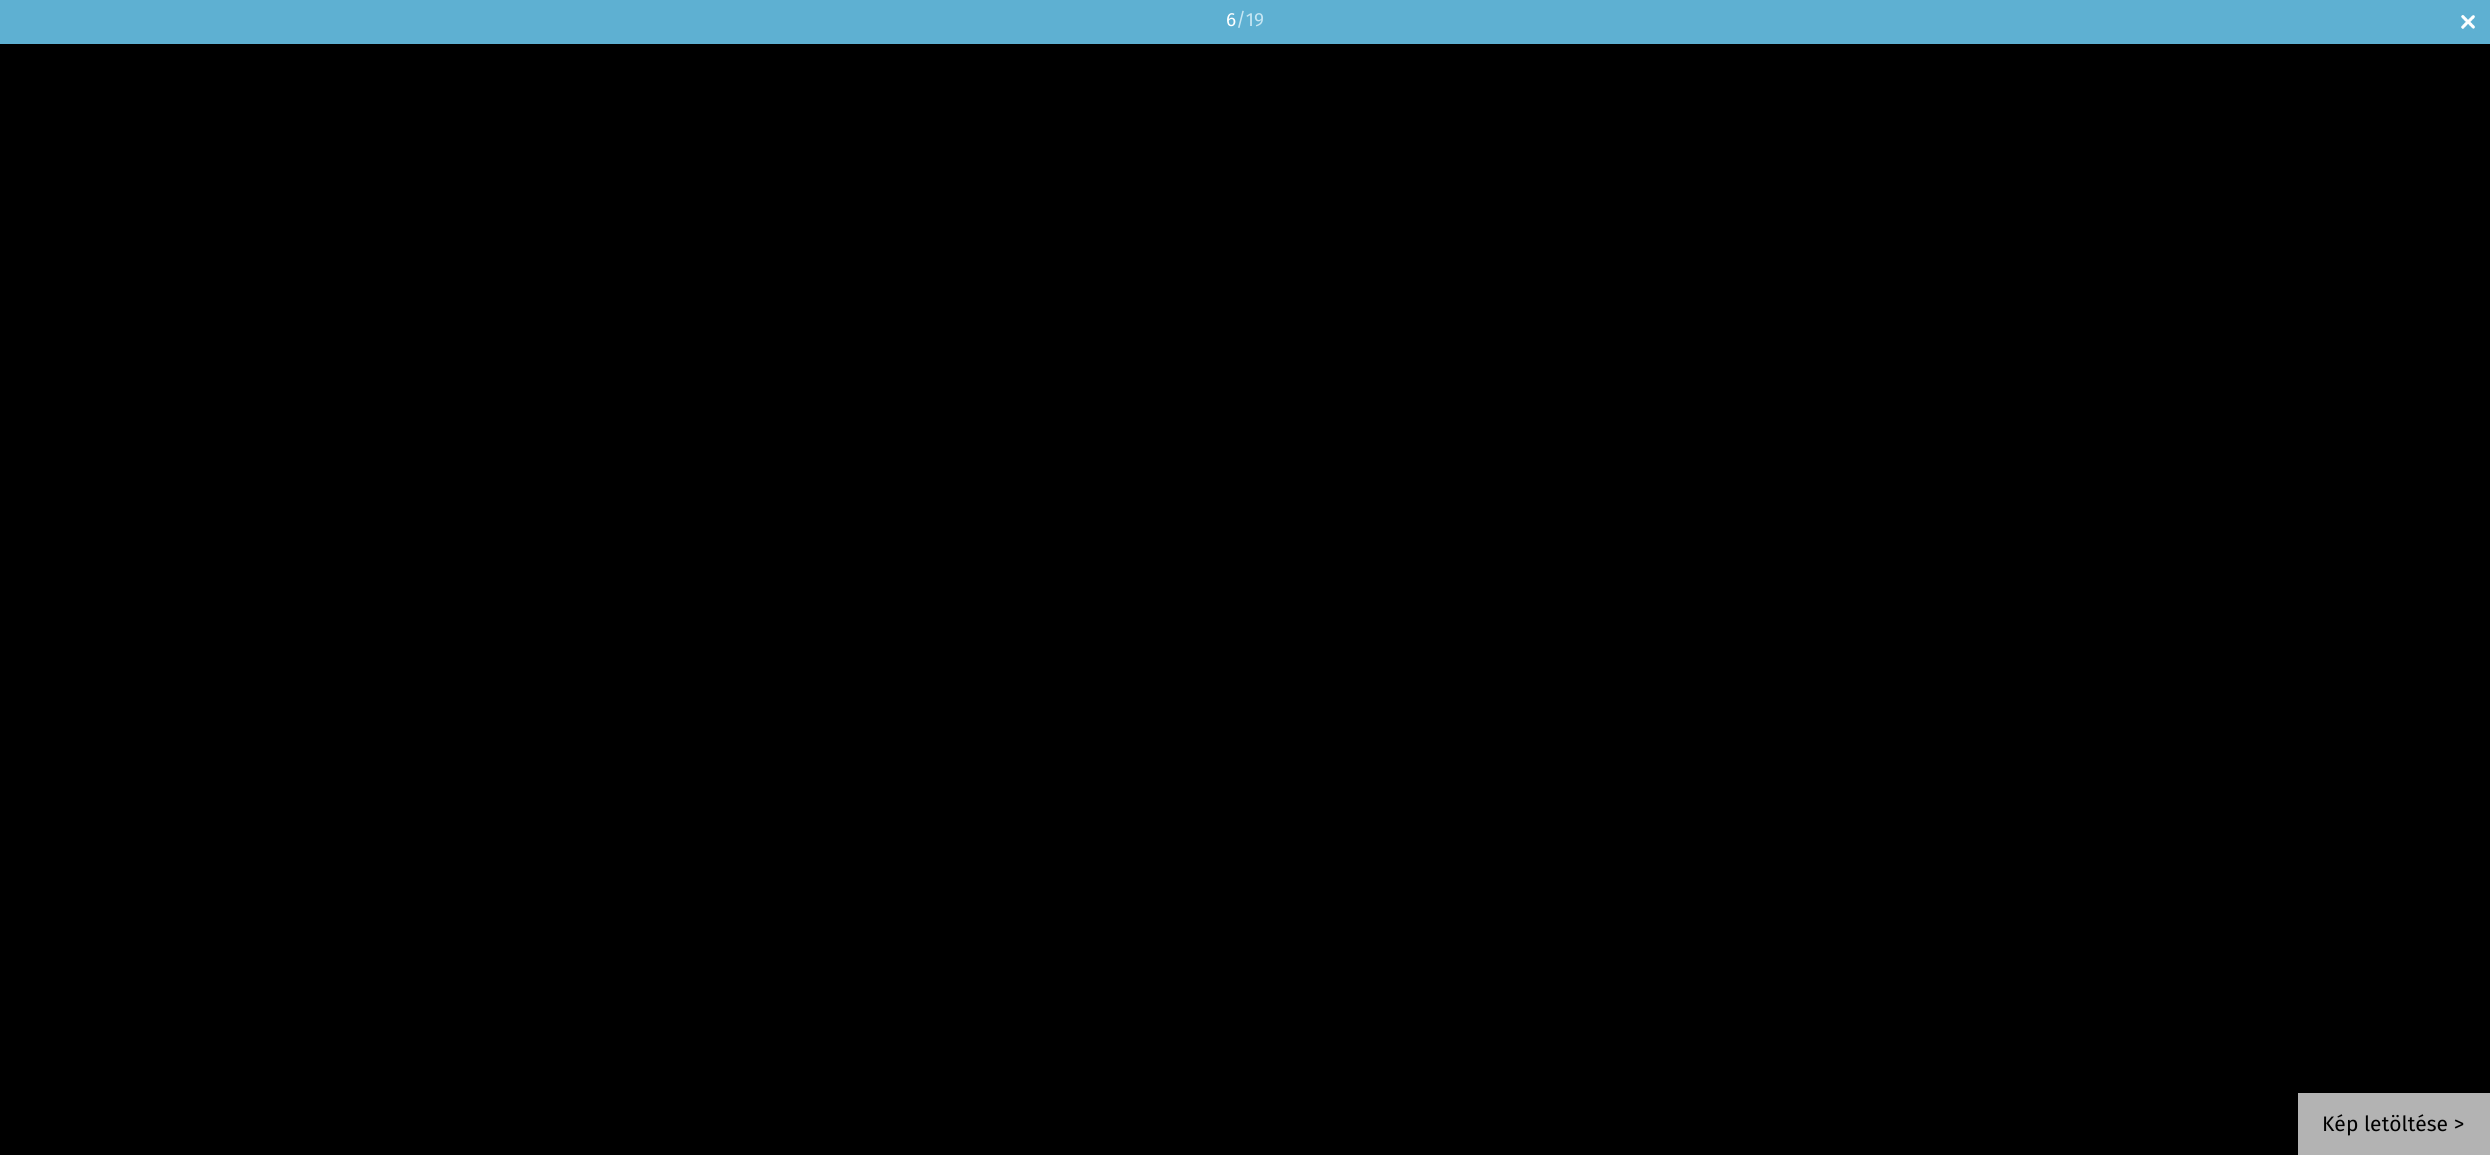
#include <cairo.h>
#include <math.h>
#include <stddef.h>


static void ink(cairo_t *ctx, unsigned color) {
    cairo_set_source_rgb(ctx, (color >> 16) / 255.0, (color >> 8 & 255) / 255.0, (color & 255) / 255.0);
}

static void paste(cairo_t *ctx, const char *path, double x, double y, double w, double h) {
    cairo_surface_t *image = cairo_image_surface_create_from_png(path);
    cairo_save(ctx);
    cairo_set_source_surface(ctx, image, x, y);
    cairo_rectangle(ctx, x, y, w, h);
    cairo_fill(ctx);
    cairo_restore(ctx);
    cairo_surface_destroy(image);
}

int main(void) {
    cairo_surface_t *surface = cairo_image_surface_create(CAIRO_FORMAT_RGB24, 2490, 1155);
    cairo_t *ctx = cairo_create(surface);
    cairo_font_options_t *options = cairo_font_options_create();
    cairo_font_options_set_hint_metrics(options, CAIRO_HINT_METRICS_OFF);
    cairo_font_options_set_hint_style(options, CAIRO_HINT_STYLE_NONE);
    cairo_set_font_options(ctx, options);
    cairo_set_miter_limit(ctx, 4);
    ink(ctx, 0x000000);
    cairo_paint(ctx);
    ink(ctx, 0x5EB0D2);
    cairo_rectangle(ctx, 0, 0, 2490, 44);
    cairo_fill(ctx);
    cairo_select_font_face(ctx, "Fira Sans", CAIRO_FONT_SLANT_NORMAL, CAIRO_FONT_WEIGHT_NORMAL);
    cairo_set_font_size(ctx, 19);
    ink(ctx, 0xFFFFFF);
    cairo_move_to(ctx, 1226, 26);
    cairo_show_text(ctx, "6");
    ink(ctx, 0xC6E6F3);
    cairo_move_to(ctx, 1236, 26);
    cairo_show_text(ctx, "/19");
    paste(ctx, "media/1.png", 2461, 15, 14, 14);
    ink(ctx, 0xB3B3B3);
    cairo_rectangle(ctx, 2298, 1093, 192, 62);
    cairo_fill(ctx);
    cairo_set_font_size(ctx, 21);
    ink(ctx, 0x000000);
    cairo_move_to(ctx, 2322, 1131);
    cairo_show_text(ctx, "Kép letöltése >");
    cairo_surface_write_to_png(surface, "image.png");
    cairo_font_options_destroy(options);
    cairo_destroy(ctx);
    cairo_surface_destroy(surface);
    return 0;
}
